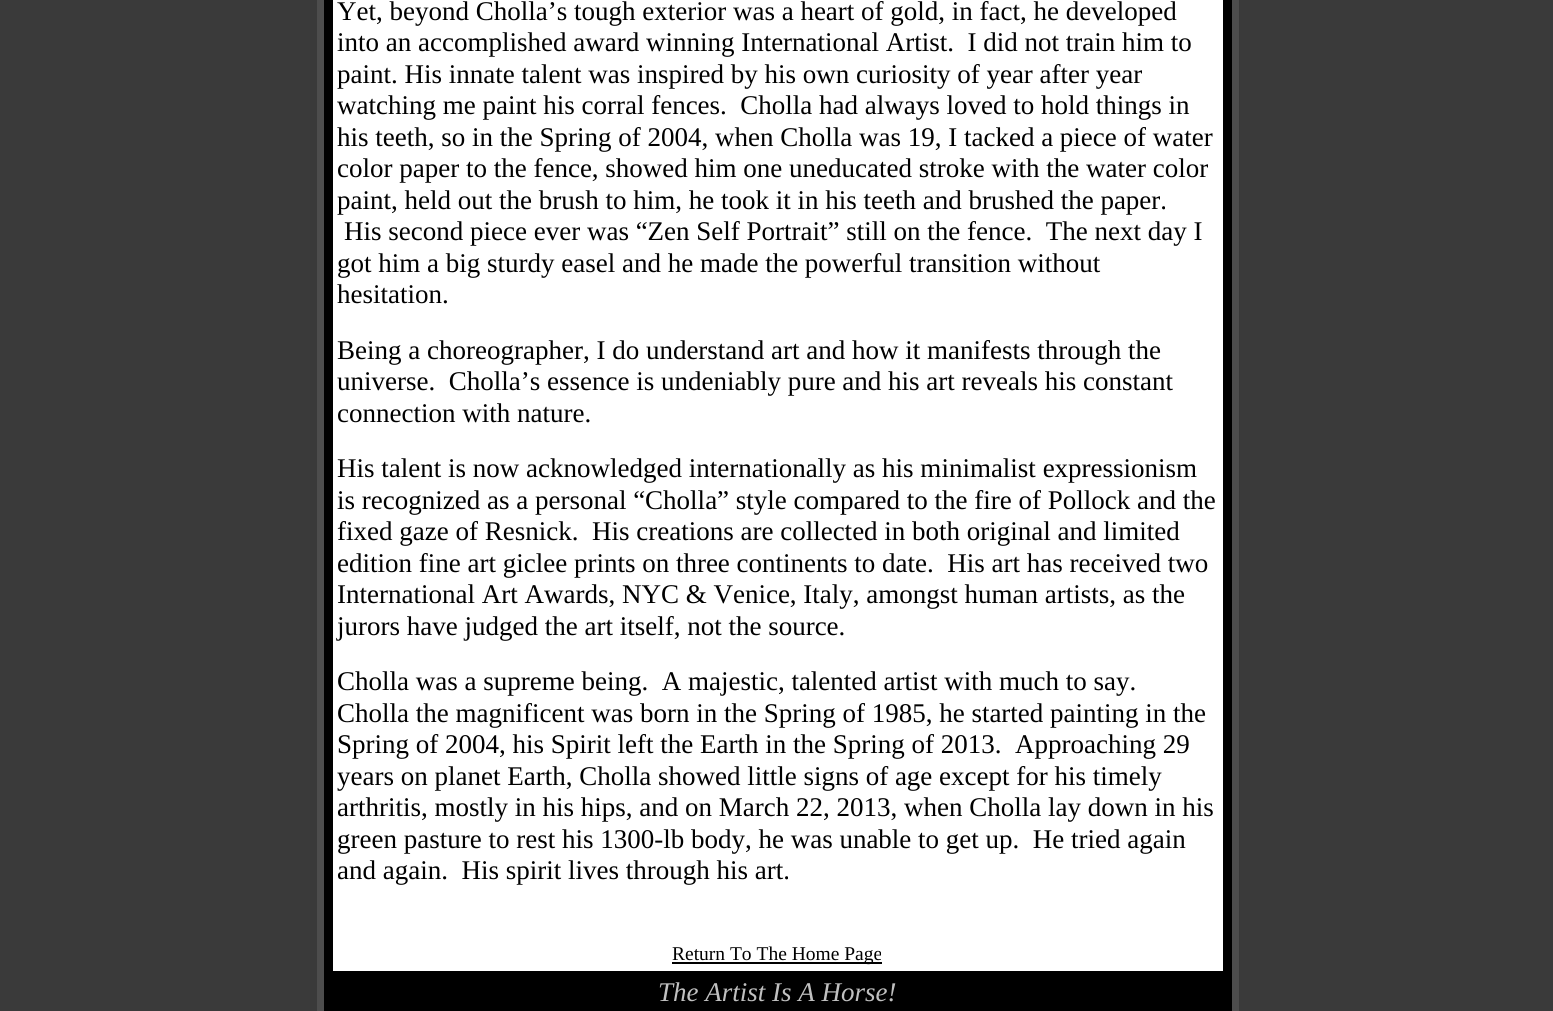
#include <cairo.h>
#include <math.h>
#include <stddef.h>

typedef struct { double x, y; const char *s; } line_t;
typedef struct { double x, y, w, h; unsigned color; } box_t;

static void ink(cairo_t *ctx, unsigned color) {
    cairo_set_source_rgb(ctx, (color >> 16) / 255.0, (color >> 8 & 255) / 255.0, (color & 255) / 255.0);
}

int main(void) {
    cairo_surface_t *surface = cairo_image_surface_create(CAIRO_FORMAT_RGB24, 1553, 1011);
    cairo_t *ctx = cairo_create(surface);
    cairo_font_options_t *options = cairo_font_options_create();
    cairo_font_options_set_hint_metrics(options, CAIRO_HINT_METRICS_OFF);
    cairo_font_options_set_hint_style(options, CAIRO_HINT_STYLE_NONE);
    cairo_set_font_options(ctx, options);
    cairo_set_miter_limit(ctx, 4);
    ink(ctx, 0x3A3A3A);
    cairo_paint(ctx);
    {
        static const box_t items[] = {
            {317, 0, 922, 1011, 0x4D4D4D},
            {324, 0, 908, 1011, 0x000000},
            {333, 0, 890, 971, 0xFFFFFF},
        };
        for (size_t i = 0; i < sizeof items / sizeof *items; i++) {
            ink(ctx, items[i].color);
            cairo_rectangle(ctx, items[i].x, items[i].y, items[i].w, items[i].h);
            cairo_fill(ctx);
        }
    }
    cairo_select_font_face(ctx, "Liberation Serif", CAIRO_FONT_SLANT_NORMAL, CAIRO_FONT_WEIGHT_NORMAL);
    cairo_set_font_size(ctx, 27);
    ink(ctx, 0x000000);
    {
        static const line_t items[] = {
            {337, 20, "Yet, beyond Cholla’s tough exterior was a heart of gold, in fact, he developed"},
            {337, 51, "into an accomplished award winning International Artist.  I did not train him to"},
            {337, 83, "paint. His innate talent was inspired by his own curiosity of year after year"},
            {337, 114, "watching me paint his corral fences.  Cholla had always loved to hold things in"},
            {337, 146, "his teeth, so in the Spring of 2004, when Cholla was 19, I tacked a piece of water"},
            {337, 177, "color paper to the fence, showed him one uneducated stroke with the water color"},
            {337, 209, "paint, held out the brush to him, he took it in his teeth and brushed the paper."},
            {344, 240, "His second piece ever was “Zen Self Portrait” still on the fence.  The next day I"},
            {337, 272, "got him a big sturdy easel and he made the powerful transition without"},
            {337, 303, "hesitation."},
            {337, 359, "Being a choreographer, I do understand art and how it manifests through the"},
            {337, 390, "universe.  Cholla’s essence is undeniably pure and his art reveals his constant"},
            {337, 422, "connection with nature."},
            {337, 477, "His talent is now acknowledged internationally as his minimalist expressionism"},
            {337, 509, "is recognized as a personal “Cholla” style compared to the fire of Pollock and the"},
            {337, 540, "fixed gaze of Resnick."},
            {592, 540, "His creations are collected in both original and limited"},
            {337, 572, "edition fine art giclee prints on three continents to date.  His art has received two"},
            {337, 603, "International Art Awards, NYC & Venice, Italy, amongst human artists, as the"},
            {337, 635, "jurors have judged the art itself, not the source."},
            {337, 690, "Cholla was a supreme being.  A majestic, talented artist with much to say."},
            {337, 722, "Cholla the magnificent was born in the Spring of 1985, he started painting in the"},
            {337, 753, "Spring of 2004, his Spirit left the Earth in the Spring of 2013.  Approaching 29"},
            {337, 785, "years on planet Earth, Cholla showed little signs of age except for his timely"},
            {337, 816, "arthritis, mostly in his hips, and on March 22, 2013, when Cholla lay down in his"},
            {337, 848, "green pasture to rest his 1300-lb body, he was unable to get up.  He tried again"},
            {337, 879, "and again.  His spirit lives through his art."},
        };
        for (size_t i = 0; i < sizeof items / sizeof *items; i++) {
            cairo_move_to(ctx, items[i].x, items[i].y);
            cairo_show_text(ctx, items[i].s);
        }
    }
    cairo_rectangle(ctx, 672, 962, 210, 2);
    cairo_fill(ctx);
    cairo_set_font_size(ctx, 19.5);
    cairo_move_to(ctx, 672, 960);
    cairo_show_text(ctx, "Return To The Home Page");
    cairo_select_font_face(ctx, "Liberation Serif", CAIRO_FONT_SLANT_ITALIC, CAIRO_FONT_WEIGHT_NORMAL);
    cairo_set_font_size(ctx, 27);
    ink(ctx, 0xC0C0C0);
    cairo_move_to(ctx, 658, 1001);
    cairo_show_text(ctx, "The Artist Is A Horse!");
    cairo_surface_write_to_png(surface, "image.png");
    cairo_font_options_destroy(options);
    cairo_destroy(ctx);
    cairo_surface_destroy(surface);
    return 0;
}
